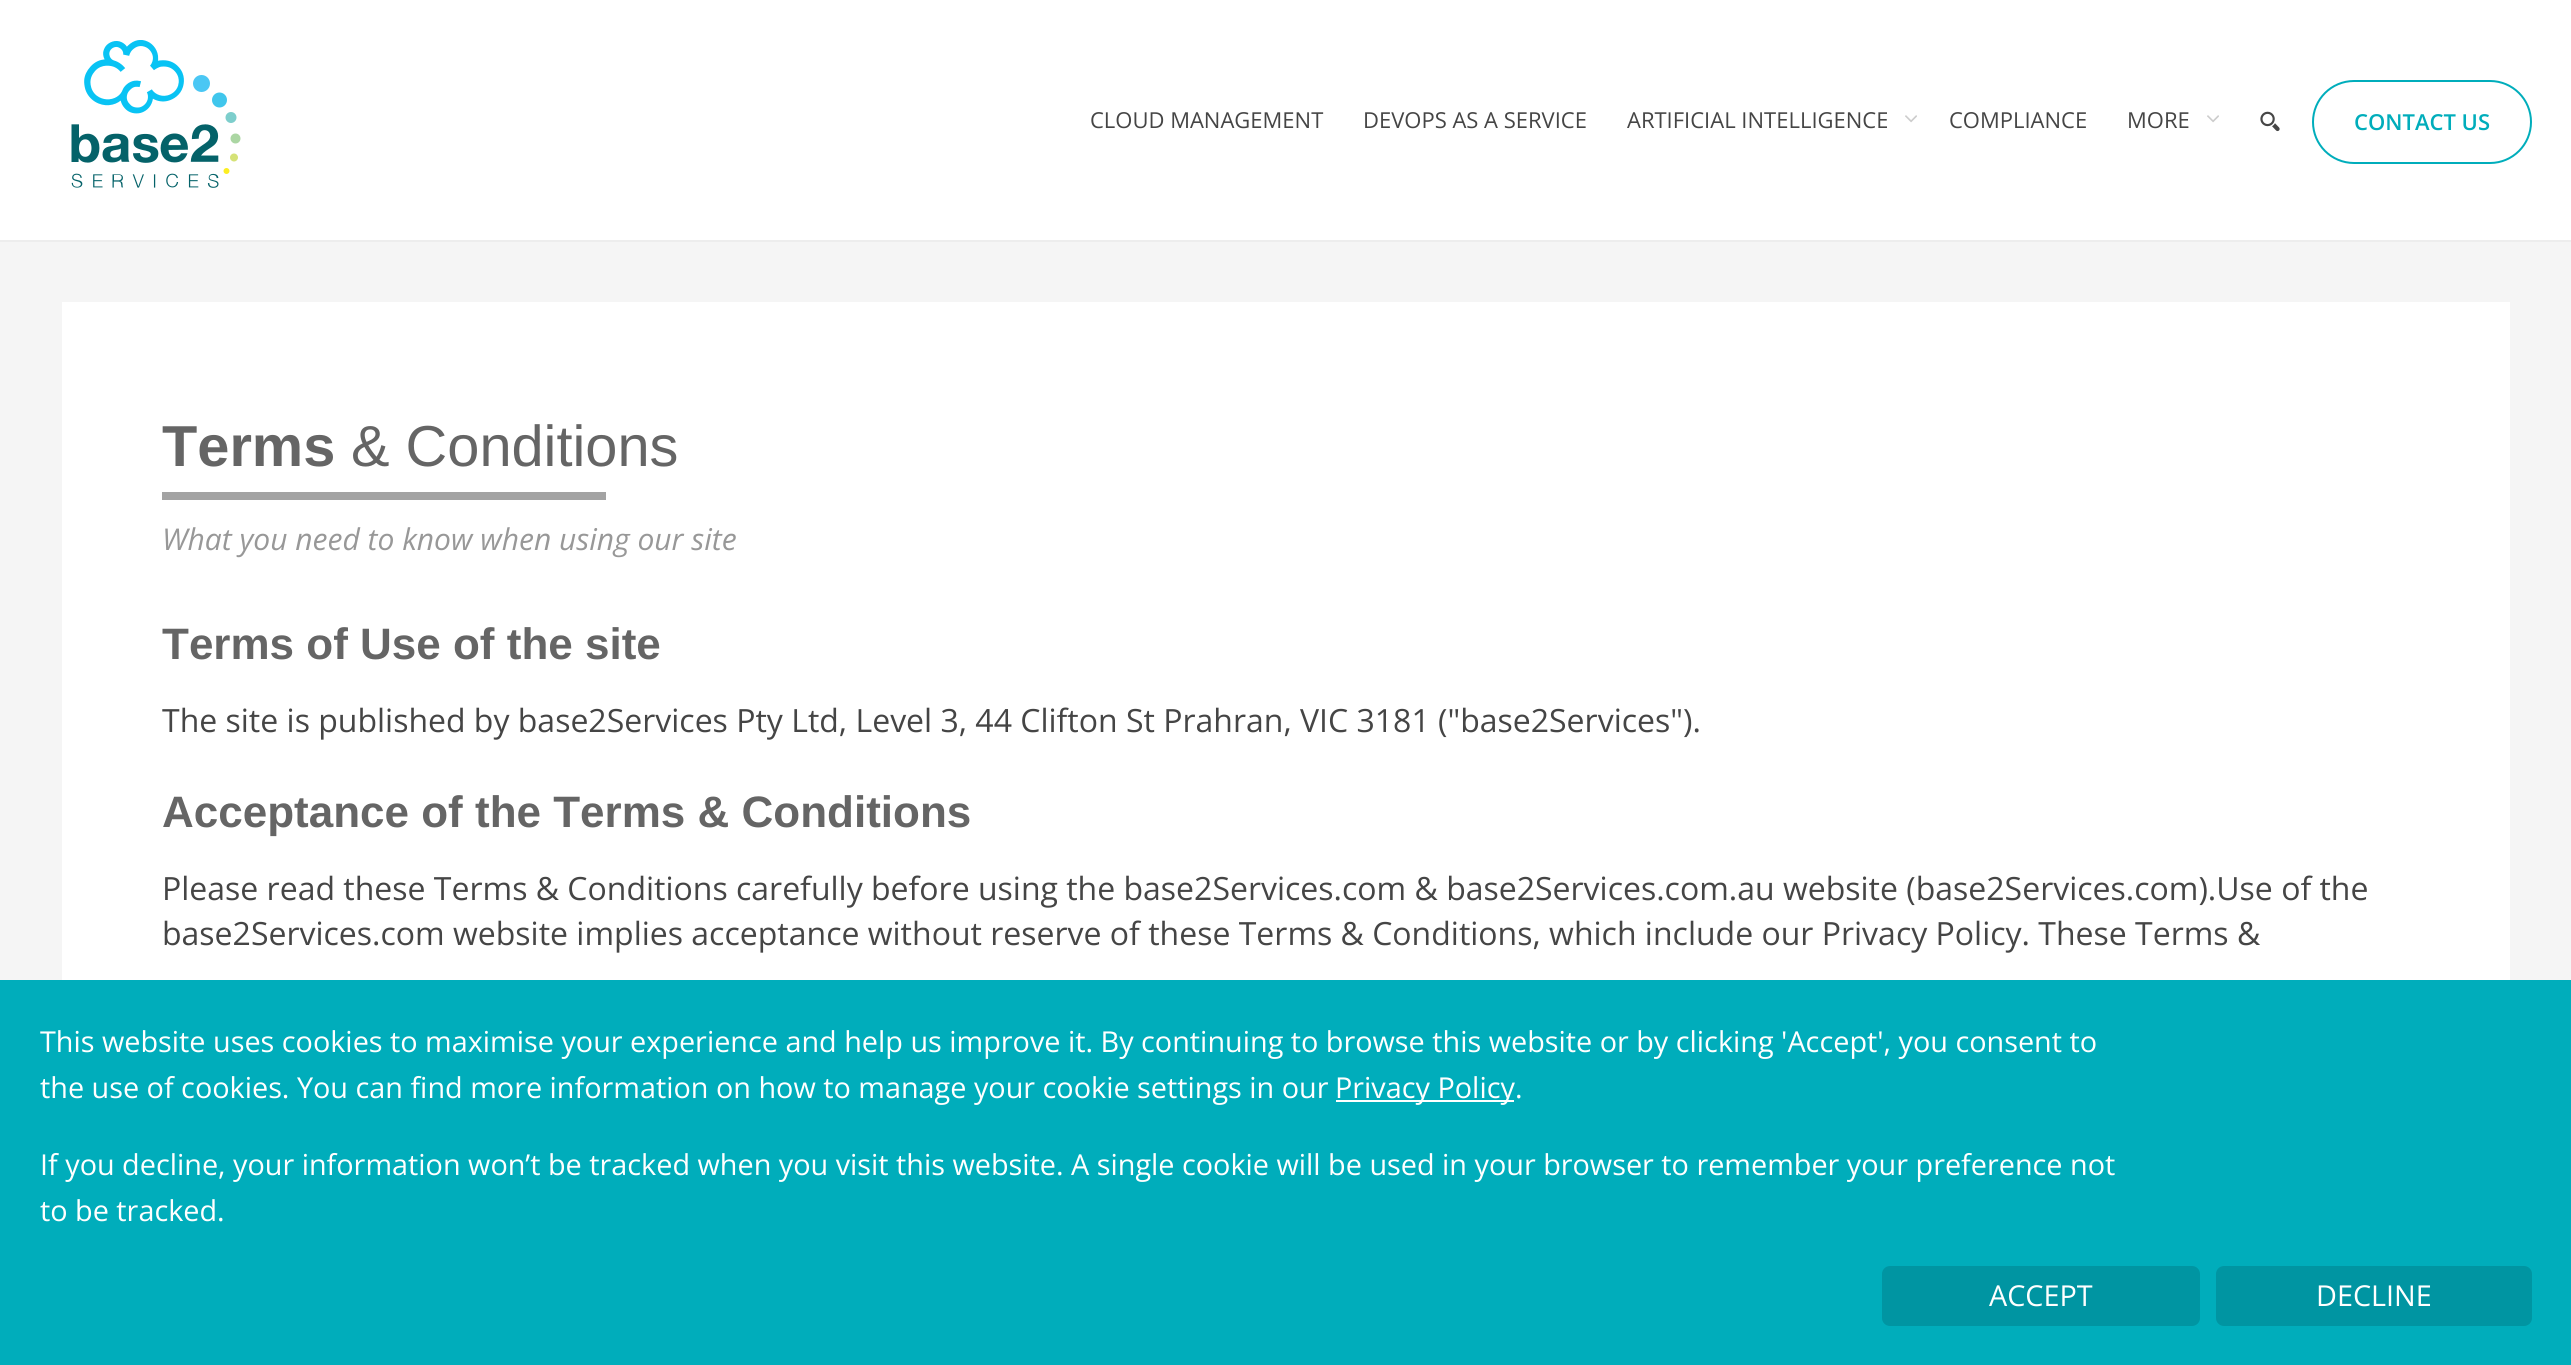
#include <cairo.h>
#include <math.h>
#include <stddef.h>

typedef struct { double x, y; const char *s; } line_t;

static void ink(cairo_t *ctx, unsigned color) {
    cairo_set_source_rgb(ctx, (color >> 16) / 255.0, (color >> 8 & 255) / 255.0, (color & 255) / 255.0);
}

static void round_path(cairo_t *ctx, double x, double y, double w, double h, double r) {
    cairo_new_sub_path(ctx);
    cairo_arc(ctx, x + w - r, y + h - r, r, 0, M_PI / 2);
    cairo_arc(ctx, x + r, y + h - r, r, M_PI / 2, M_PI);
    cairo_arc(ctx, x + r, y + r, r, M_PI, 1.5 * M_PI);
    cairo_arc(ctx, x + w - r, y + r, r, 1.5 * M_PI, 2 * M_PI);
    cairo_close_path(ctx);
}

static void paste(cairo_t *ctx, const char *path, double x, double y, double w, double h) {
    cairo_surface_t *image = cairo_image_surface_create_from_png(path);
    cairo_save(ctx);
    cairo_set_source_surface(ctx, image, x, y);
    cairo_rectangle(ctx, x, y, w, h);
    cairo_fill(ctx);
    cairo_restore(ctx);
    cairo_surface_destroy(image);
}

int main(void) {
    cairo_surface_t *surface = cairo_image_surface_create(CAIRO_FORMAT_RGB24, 2571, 1365);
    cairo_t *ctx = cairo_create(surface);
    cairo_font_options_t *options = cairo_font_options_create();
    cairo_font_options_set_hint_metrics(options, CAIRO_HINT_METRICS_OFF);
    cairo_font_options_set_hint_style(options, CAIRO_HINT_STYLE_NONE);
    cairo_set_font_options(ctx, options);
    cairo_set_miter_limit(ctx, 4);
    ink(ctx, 0xF5F5F5);
    cairo_paint(ctx);
    ink(ctx, 0xFFFFFF);
    cairo_rectangle(ctx, 0, 0, 2571, 240);
    cairo_fill(ctx);
    ink(ctx, 0xEDEDED);
    cairo_rectangle(ctx, 0, 240, 2571, 2);
    cairo_fill(ctx);
    paste(ctx, "media/1.png", 71, 40, 170, 148);
    cairo_select_font_face(ctx, "Open Sans", CAIRO_FONT_SLANT_NORMAL, CAIRO_FONT_WEIGHT_NORMAL);
    cairo_set_font_size(ctx, 22);
    ink(ctx, 0x454545);
    {
        static const line_t items[] = {
            {1090, 128, "CLOUD MANAGEMENT"},
            {1363, 128, "DEVOPS AS A SERVICE"},
            {1627, 128, "ARTIFICIAL INTELLIGENCE"},
        };
        for (size_t i = 0; i < sizeof items / sizeof *items; i++) {
            cairo_move_to(ctx, items[i].x, items[i].y);
            cairo_show_text(ctx, items[i].s);
        }
    }
    paste(ctx, "media/2.png", 1905, 115, 12, 8);
    cairo_move_to(ctx, 1949, 128);
    cairo_show_text(ctx, "COMPLIANCE");
    cairo_move_to(ctx, 2127, 128);
    cairo_show_text(ctx, "MORE");
    paste(ctx, "media/2.png", 2207, 115, 12, 8);
    paste(ctx, "media/3.png", 2260, 111, 20, 21);
    round_path(ctx, 2313, 81, 218, 82, 41);
    ink(ctx, 0x00ADBB);
    cairo_stroke(ctx);
    cairo_select_font_face(ctx, "Open Sans SemiBold", CAIRO_FONT_SLANT_NORMAL, CAIRO_FONT_WEIGHT_NORMAL);
    cairo_move_to(ctx, 2354, 130);
    cairo_show_text(ctx, "CONTACT US");
    cairo_rectangle(ctx, 0, 980, 2571, 385);
    cairo_fill(ctx);
    cairo_select_font_face(ctx, "Open Sans", CAIRO_FONT_SLANT_NORMAL, CAIRO_FONT_WEIGHT_NORMAL);
    cairo_set_font_size(ctx, 28.8);
    ink(ctx, 0xFFFFFF);
    cairo_move_to(ctx, 40, 1052);
    cairo_show_text(ctx, "This website uses cookies to maximise your experience and help us improve it. By continuing to browse this website or by clicking 'Accept', you consent to");
    cairo_move_to(ctx, 40, 1098);
    cairo_show_text(ctx, "the use of cookies. You can find more information on how to manage your cookie settings in our");
    cairo_rectangle(ctx, 1336, 1100, 178, 2);
    cairo_fill(ctx);
    {
        static const line_t items[] = {
            {1335, 1098, "Privacy Policy"},
            {1515, 1098, "."},
            {40, 1175, "If you decline, your information won’t be tracked when you visit this website. A single cookie will be used in your browser to remember your preference not"},
            {40, 1221, "to be tracked."},
        };
        for (size_t i = 0; i < sizeof items / sizeof *items; i++) {
            cairo_move_to(ctx, items[i].x, items[i].y);
            cairo_show_text(ctx, items[i].s);
        }
    }
    ink(ctx, 0x0095A2);
    round_path(ctx, 1882, 1266, 318, 60, 8);
    cairo_fill(ctx);
    ink(ctx, 0xFFFFFF);
    cairo_move_to(ctx, 1989, 1306);
    cairo_show_text(ctx, "ACCEPT");
    ink(ctx, 0x0095A2);
    round_path(ctx, 2216, 1266, 316, 60, 8);
    cairo_fill(ctx);
    ink(ctx, 0xFFFFFF);
    cairo_move_to(ctx, 2316, 1306);
    cairo_show_text(ctx, "DECLINE");
    cairo_rectangle(ctx, 62, 302, 2448, 678);
    cairo_fill(ctx);
    cairo_select_font_face(ctx, "Liberation Sans", CAIRO_FONT_SLANT_NORMAL, CAIRO_FONT_WEIGHT_BOLD);
    cairo_set_font_size(ctx, 57.75);
    ink(ctx, 0x656565);
    cairo_move_to(ctx, 162, 466);
    cairo_show_text(ctx, "Terms");
    cairo_select_font_face(ctx, "Liberation Sans", CAIRO_FONT_SLANT_NORMAL, CAIRO_FONT_WEIGHT_NORMAL);
    cairo_move_to(ctx, 351, 466);
    cairo_show_text(ctx, "& Conditions");
    ink(ctx, 0xA3A3A3);
    cairo_rectangle(ctx, 162, 492, 444, 8);
    cairo_fill(ctx);
    cairo_select_font_face(ctx, "Open Sans", CAIRO_FONT_SLANT_ITALIC, CAIRO_FONT_WEIGHT_NORMAL);
    cairo_set_font_size(ctx, 30);
    ink(ctx, 0x989898);
    cairo_move_to(ctx, 162, 550);
    cairo_show_text(ctx, "What you need to know when using our site");
    cairo_select_font_face(ctx, "Liberation Sans", CAIRO_FONT_SLANT_NORMAL, CAIRO_FONT_WEIGHT_BOLD);
    cairo_set_font_size(ctx, 44);
    ink(ctx, 0x656565);
    cairo_move_to(ctx, 162, 659);
    cairo_show_text(ctx, "Terms of Use of the site");
    cairo_select_font_face(ctx, "Open Sans", CAIRO_FONT_SLANT_NORMAL, CAIRO_FONT_WEIGHT_NORMAL);
    cairo_set_font_size(ctx, 32);
    ink(ctx, 0x454545);
    cairo_move_to(ctx, 162, 732);
    cairo_show_text(ctx, "The site is published by base2Services Pty Ltd, Level 3, 44 Clifton St Prahran, VIC 3181 (\"base2Services\").");
    cairo_select_font_face(ctx, "Liberation Sans", CAIRO_FONT_SLANT_NORMAL, CAIRO_FONT_WEIGHT_BOLD);
    cairo_set_font_size(ctx, 44);
    ink(ctx, 0x656565);
    cairo_move_to(ctx, 162, 827);
    cairo_show_text(ctx, "Acceptance of the Terms & Conditions");
    cairo_select_font_face(ctx, "Open Sans", CAIRO_FONT_SLANT_NORMAL, CAIRO_FONT_WEIGHT_NORMAL);
    cairo_set_font_size(ctx, 32);
    ink(ctx, 0x454545);
    cairo_move_to(ctx, 162, 900);
    cairo_show_text(ctx, "Please read these Terms & Conditions carefully before using the base2Services.com & base2Services.com.au website (base2Services.com).Use of the");
    cairo_move_to(ctx, 162, 945);
    cairo_show_text(ctx, "base2Services.com website implies acceptance without reserve of these Terms & Conditions, which include our Privacy Policy. These Terms &");
    cairo_surface_write_to_png(surface, "image.png");
    cairo_font_options_destroy(options);
    cairo_destroy(ctx);
    cairo_surface_destroy(surface);
    return 0;
}
